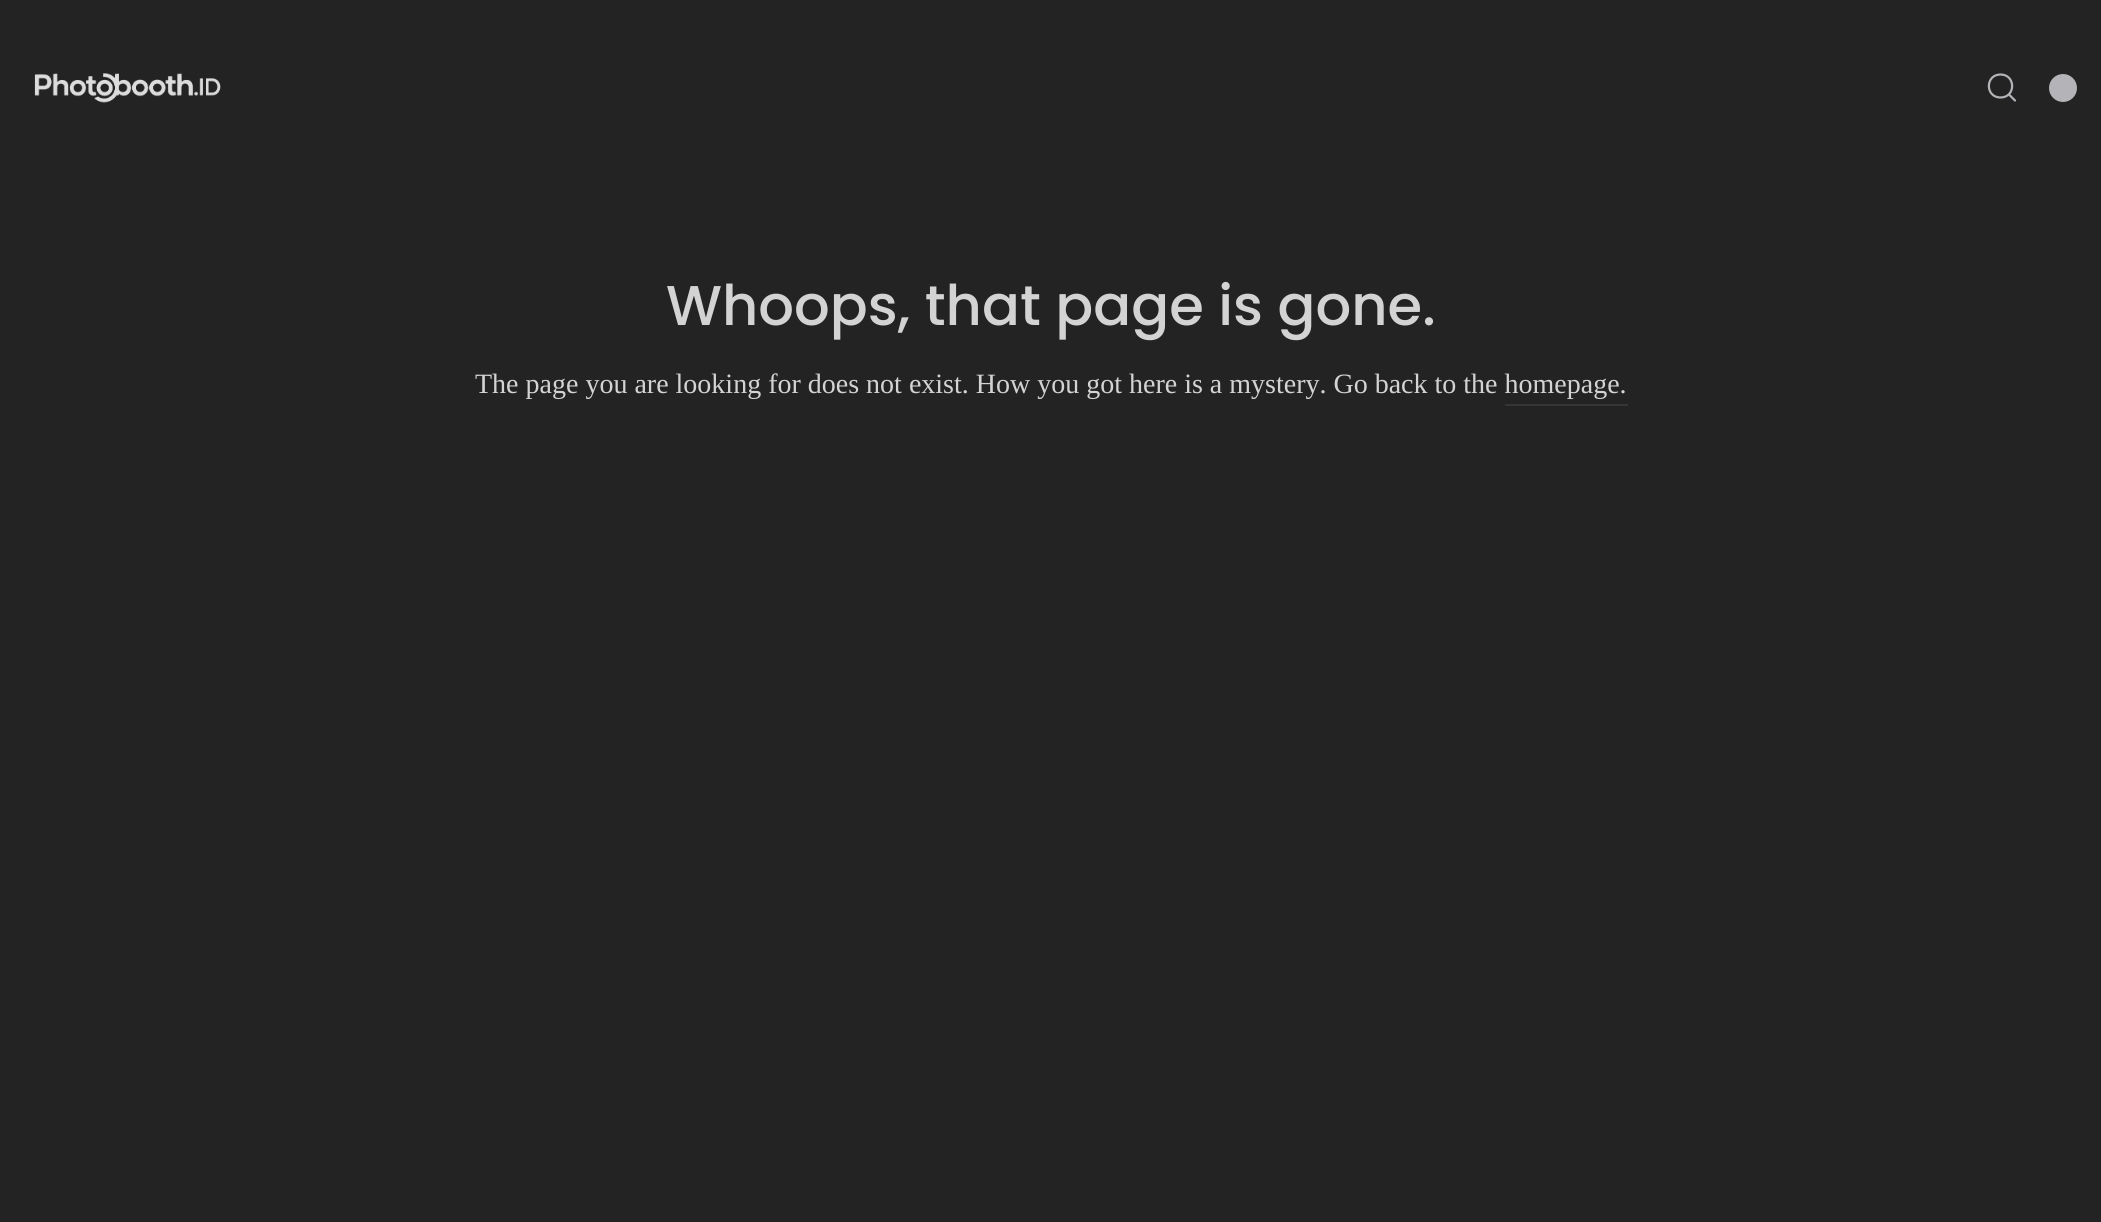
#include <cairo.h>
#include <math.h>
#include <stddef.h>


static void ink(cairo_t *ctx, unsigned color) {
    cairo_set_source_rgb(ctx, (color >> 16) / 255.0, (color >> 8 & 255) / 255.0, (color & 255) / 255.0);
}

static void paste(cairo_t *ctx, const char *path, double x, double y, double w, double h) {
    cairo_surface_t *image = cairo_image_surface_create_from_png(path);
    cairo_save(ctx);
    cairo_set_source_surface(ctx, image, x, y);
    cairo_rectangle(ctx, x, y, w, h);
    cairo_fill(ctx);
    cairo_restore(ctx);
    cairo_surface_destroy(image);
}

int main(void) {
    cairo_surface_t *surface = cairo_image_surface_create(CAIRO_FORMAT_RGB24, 2101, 1222);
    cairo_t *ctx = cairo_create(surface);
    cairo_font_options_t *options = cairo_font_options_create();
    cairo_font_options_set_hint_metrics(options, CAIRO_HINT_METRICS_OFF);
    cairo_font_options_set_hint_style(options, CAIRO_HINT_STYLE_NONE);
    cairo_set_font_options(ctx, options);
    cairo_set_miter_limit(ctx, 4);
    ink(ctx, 0x242323);
    cairo_paint(ctx);
    paste(ctx, "media/1.png", 34, 73, 187, 30);
    cairo_new_path(ctx);
    cairo_move_to(ctx, 2000.5, 97.5);
    cairo_curve_to(ctx, 2016, 97.5, 2016, 74.5, 2000.5, 74.5);
    cairo_curve_to(ctx, 1985, 74.5, 1985, 97.5, 2000.5, 97.5);
    cairo_close_path(ctx);
    cairo_move_to(ctx, 2015, 100.5);
    cairo_line_to(ctx, 2009, 94.5);
    ink(ctx, 0xB4B3B7);
    cairo_set_line_width(ctx, 2.2);
    cairo_set_line_cap(ctx, CAIRO_LINE_CAP_ROUND);
    cairo_set_line_join(ctx, CAIRO_LINE_JOIN_ROUND);
    cairo_stroke(ctx);
    cairo_arc(ctx, 2063, 88, 14, 0, 2 * M_PI);
    cairo_fill(ctx);
    cairo_select_font_face(ctx, "Poppins Medium", CAIRO_FONT_SLANT_NORMAL, CAIRO_FONT_WEIGHT_NORMAL);
    cairo_set_font_size(ctx, 56);
    ink(ctx, 0xD4D3D3);
    cairo_move_to(ctx, 666, 325);
    cairo_show_text(ctx, "Whoops, that page is gone.");
    cairo_select_font_face(ctx, "Liberation Serif", CAIRO_FONT_SLANT_NORMAL, CAIRO_FONT_WEIGHT_NORMAL);
    cairo_set_font_size(ctx, 28);
    cairo_move_to(ctx, 475, 393);
    cairo_show_text(ctx, "The page you are looking for does not exist. How you got here is a mystery. Go back to the homepage.");
    ink(ctx, 0x353535);
    cairo_rectangle(ctx, 1505, 404, 123, 2);
    cairo_fill(ctx);
    cairo_surface_write_to_png(surface, "image.png");
    cairo_font_options_destroy(options);
    cairo_destroy(ctx);
    cairo_surface_destroy(surface);
    return 0;
}
